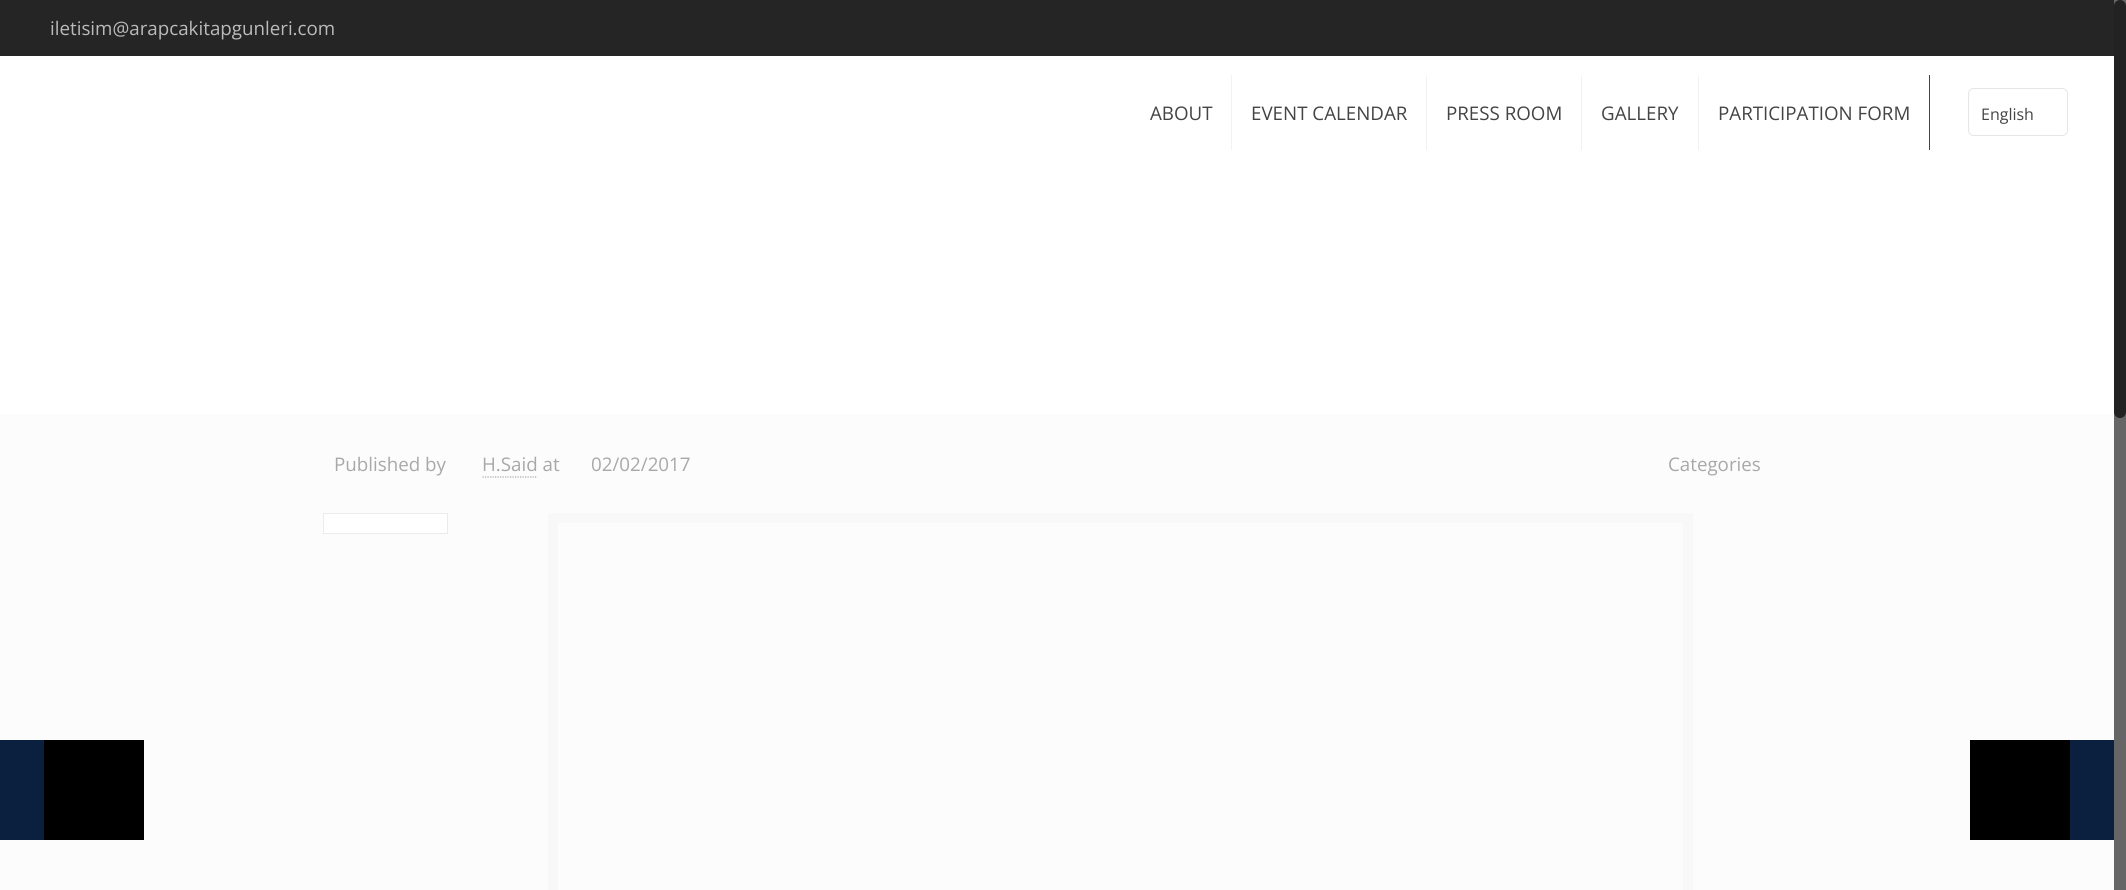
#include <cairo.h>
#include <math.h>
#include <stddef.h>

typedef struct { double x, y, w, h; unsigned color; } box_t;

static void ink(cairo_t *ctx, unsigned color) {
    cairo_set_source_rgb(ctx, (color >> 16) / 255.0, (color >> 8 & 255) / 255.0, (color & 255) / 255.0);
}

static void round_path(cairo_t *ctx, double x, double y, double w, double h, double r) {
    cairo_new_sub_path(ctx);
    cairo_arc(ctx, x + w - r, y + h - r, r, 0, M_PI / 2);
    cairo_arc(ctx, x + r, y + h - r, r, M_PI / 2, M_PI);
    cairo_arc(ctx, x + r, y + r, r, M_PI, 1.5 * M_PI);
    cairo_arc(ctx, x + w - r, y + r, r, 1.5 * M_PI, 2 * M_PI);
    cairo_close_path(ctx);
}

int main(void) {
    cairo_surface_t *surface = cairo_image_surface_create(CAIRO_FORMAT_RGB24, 2126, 890);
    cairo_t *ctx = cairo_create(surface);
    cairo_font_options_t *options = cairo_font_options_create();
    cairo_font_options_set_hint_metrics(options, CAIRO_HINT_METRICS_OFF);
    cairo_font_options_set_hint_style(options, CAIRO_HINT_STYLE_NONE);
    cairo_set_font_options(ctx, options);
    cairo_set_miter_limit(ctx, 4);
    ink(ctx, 0xFCFCFC);
    cairo_paint(ctx);
    ink(ctx, 0xFFFFFF);
    cairo_rectangle(ctx, 0, 56, 2114, 358);
    cairo_fill(ctx);
    ink(ctx, 0x252525);
    cairo_rectangle(ctx, 0, 0, 2114, 56);
    cairo_fill(ctx);
    cairo_select_font_face(ctx, "Open Sans", CAIRO_FONT_SLANT_NORMAL, CAIRO_FONT_WEIGHT_NORMAL);
    cairo_set_font_size(ctx, 18.75);
    ink(ctx, 0xBBBBBB);
    cairo_move_to(ctx, 50, 35);
    cairo_show_text(ctx, "iletisim@arapcakitapgunleri.com");
    ink(ctx, 0xF2F2F2);
    cairo_rectangle(ctx, 1231, 75, 1, 75);
    cairo_fill(ctx);
    ink(ctx, 0x444444);
    cairo_move_to(ctx, 1150, 120);
    cairo_show_text(ctx, "ABOUT");
    ink(ctx, 0xF2F2F2);
    cairo_rectangle(ctx, 1426, 75, 1, 75);
    cairo_fill(ctx);
    ink(ctx, 0x444444);
    cairo_move_to(ctx, 1251, 120);
    cairo_show_text(ctx, "EVENT CALENDAR");
    ink(ctx, 0xF2F2F2);
    cairo_rectangle(ctx, 1581, 75, 1, 75);
    cairo_fill(ctx);
    ink(ctx, 0x444444);
    cairo_move_to(ctx, 1446, 120);
    cairo_show_text(ctx, "PRESS ROOM");
    ink(ctx, 0xF2F2F2);
    cairo_rectangle(ctx, 1698, 75, 1, 75);
    cairo_fill(ctx);
    ink(ctx, 0x444444);
    cairo_move_to(ctx, 1601, 120);
    cairo_show_text(ctx, "GALLERY");
    cairo_rectangle(ctx, 1929, 75, 1, 75);
    cairo_fill(ctx);
    cairo_move_to(ctx, 1718, 120);
    cairo_show_text(ctx, "PARTICIPATION FORM");
    round_path(ctx, 1968.5, 88.5, 99, 47, 5.5);
    ink(ctx, 0xE6E6E6);
    cairo_set_line_width(ctx, 1);
    cairo_stroke(ctx);
    cairo_set_font_size(ctx, 16);
    ink(ctx, 0x444444);
    cairo_move_to(ctx, 1981, 120);
    cairo_show_text(ctx, "English");
    cairo_set_font_size(ctx, 18.75);
    ink(ctx, 0xA8A8A8);
    cairo_move_to(ctx, 334, 471);
    cairo_show_text(ctx, "Published by");
    cairo_move_to(ctx, 482, 471);
    cairo_show_text(ctx, "H.Said at");
    cairo_new_path(ctx);
    cairo_move_to(ctx, 482.5, 477);
    cairo_line_to(ctx, 537.5, 477);
    cairo_set_line_width(ctx, 1.2);
    cairo_set_dash(ctx, (double[]){1.25, 1.25}, 2, 0);
    cairo_stroke(ctx);
    cairo_move_to(ctx, 591, 471);
    cairo_show_text(ctx, "02/02/2017");
    cairo_move_to(ctx, 1668, 471);
    cairo_show_text(ctx, "Categories");
    ink(ctx, 0xFFFFFF);
    cairo_rectangle(ctx, 323.5, 513.5, 124, 20);
    cairo_fill_preserve(ctx);
    ink(ctx, 0xEBEBEB);
    cairo_set_line_width(ctx, 1);
    cairo_set_dash(ctx, NULL, 0, 0);
    cairo_stroke(ctx);
    cairo_rectangle(ctx, 553, 518, 1135, 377);
    ink(ctx, 0xF8F8F8);
    cairo_set_line_width(ctx, 10);
    cairo_stroke(ctx);
    ink(ctx, 0x666666);
    cairo_rectangle(ctx, 2114, 0, 12, 890);
    cairo_fill(ctx);
    ink(ctx, 0x222222);
    round_path(ctx, 2114, 0, 12, 418, 6);
    cairo_fill(ctx);
    {
        static const box_t items[] = {
            {0, 740, 44, 100, 0x0B1F3F},
            {44, 740, 100, 100, 0x000000},
            {1970, 740, 100, 100, 0x000000},
            {2070, 740, 44, 100, 0x0B1F3F},
        };
        for (size_t i = 0; i < sizeof items / sizeof *items; i++) {
            ink(ctx, items[i].color);
            cairo_rectangle(ctx, items[i].x, items[i].y, items[i].w, items[i].h);
            cairo_fill(ctx);
        }
    }
    cairo_surface_write_to_png(surface, "image.png");
    cairo_font_options_destroy(options);
    cairo_destroy(ctx);
    cairo_surface_destroy(surface);
    return 0;
}
